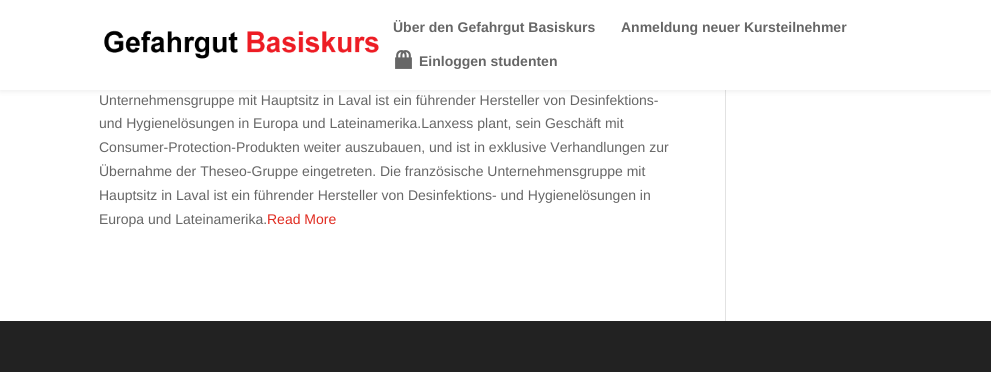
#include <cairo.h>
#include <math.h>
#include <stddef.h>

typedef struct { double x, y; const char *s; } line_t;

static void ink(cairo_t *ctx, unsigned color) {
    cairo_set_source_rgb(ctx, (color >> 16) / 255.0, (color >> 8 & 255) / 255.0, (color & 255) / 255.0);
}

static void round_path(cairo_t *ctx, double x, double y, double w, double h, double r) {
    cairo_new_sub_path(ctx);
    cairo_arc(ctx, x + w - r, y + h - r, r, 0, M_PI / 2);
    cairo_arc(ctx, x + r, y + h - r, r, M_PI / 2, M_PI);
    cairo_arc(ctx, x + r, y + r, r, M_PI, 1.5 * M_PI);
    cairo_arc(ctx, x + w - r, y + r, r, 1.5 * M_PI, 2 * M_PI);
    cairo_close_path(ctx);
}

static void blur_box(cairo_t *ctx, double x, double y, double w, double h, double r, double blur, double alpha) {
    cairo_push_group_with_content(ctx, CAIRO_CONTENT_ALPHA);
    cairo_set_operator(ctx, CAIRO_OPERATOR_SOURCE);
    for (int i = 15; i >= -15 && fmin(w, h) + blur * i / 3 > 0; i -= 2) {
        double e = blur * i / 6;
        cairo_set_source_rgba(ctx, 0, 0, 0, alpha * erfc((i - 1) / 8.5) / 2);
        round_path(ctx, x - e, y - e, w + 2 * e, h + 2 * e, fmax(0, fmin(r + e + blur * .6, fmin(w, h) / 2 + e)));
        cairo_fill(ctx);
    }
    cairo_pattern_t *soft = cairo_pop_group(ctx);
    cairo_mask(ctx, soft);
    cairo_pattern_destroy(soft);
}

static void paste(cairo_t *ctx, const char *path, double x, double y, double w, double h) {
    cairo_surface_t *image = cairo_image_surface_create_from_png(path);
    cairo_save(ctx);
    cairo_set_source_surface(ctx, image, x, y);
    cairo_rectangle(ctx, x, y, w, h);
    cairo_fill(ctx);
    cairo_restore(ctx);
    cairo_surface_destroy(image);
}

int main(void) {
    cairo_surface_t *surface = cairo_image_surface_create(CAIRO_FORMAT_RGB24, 991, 372);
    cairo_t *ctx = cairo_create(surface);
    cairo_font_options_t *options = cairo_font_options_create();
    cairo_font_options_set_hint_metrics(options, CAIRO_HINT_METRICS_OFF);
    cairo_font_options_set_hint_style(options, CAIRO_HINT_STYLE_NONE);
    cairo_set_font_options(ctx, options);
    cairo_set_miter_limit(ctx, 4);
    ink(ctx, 0xFFFFFF);
    cairo_paint(ctx);
    ink(ctx, 0xE2E2E2);
    cairo_rectangle(ctx, 725, 90, 1, 231);
    cairo_fill(ctx);
    ink(ctx, 0x000000);
    blur_box(ctx, 0, 0, 991, 90, 0, 3.5, 0.1);
    ink(ctx, 0xFFFFFF);
    cairo_rectangle(ctx, 0, 0, 991, 90);
    cairo_fill(ctx);
    paste(ctx, "media/1.png", 104, 30, 275, 29);
    cairo_select_font_face(ctx, "Liberation Sans", CAIRO_FONT_SLANT_NORMAL, CAIRO_FONT_WEIGHT_BOLD);
    cairo_set_font_size(ctx, 14);
    ink(ctx, 0x666666);
    cairo_move_to(ctx, 393, 32);
    cairo_show_text(ctx, "Über den Gefahrgut Basiskurs");
    cairo_move_to(ctx, 621, 32);
    cairo_show_text(ctx, "Anmeldung neuer Kursteilnehmer");
    paste(ctx, "media/2.png", 395, 50, 17, 19);
    cairo_move_to(ctx, 419, 66);
    cairo_show_text(ctx, "Einloggen studenten");
    cairo_select_font_face(ctx, "Liberation Sans", CAIRO_FONT_SLANT_NORMAL, CAIRO_FONT_WEIGHT_NORMAL);
    {
        static const line_t items[] = {
            {99, 105, "Unternehmensgruppe mit Hauptsitz in Laval ist ein führender Hersteller von Desinfektions-"},
            {99, 128, "und Hygienelösungen in Europa und Lateinamerika.Lanxess plant, sein Geschäft mit"},
            {99, 152, "Consumer-Protection-Produkten weiter auszubauen, und ist in exklusive Verhandlungen zur"},
            {99, 176, "Übernahme der Theseo-Gruppe eingetreten. Die französische Unternehmensgruppe mit"},
            {99, 200, "Hauptsitz in Laval ist ein führender Hersteller von Desinfektions- und Hygienelösungen in"},
            {99, 224, "Europa und Lateinamerika."},
        };
        for (size_t i = 0; i < sizeof items / sizeof *items; i++) {
            cairo_move_to(ctx, items[i].x, items[i].y);
            cairo_show_text(ctx, items[i].s);
        }
    }
    ink(ctx, 0xE02B20);
    cairo_move_to(ctx, 267, 224);
    cairo_show_text(ctx, "Read More");
    ink(ctx, 0x222222);
    cairo_rectangle(ctx, 0, 321, 991, 51);
    cairo_fill(ctx);
    cairo_surface_write_to_png(surface, "image.png");
    cairo_font_options_destroy(options);
    cairo_destroy(ctx);
    cairo_surface_destroy(surface);
    return 0;
}
